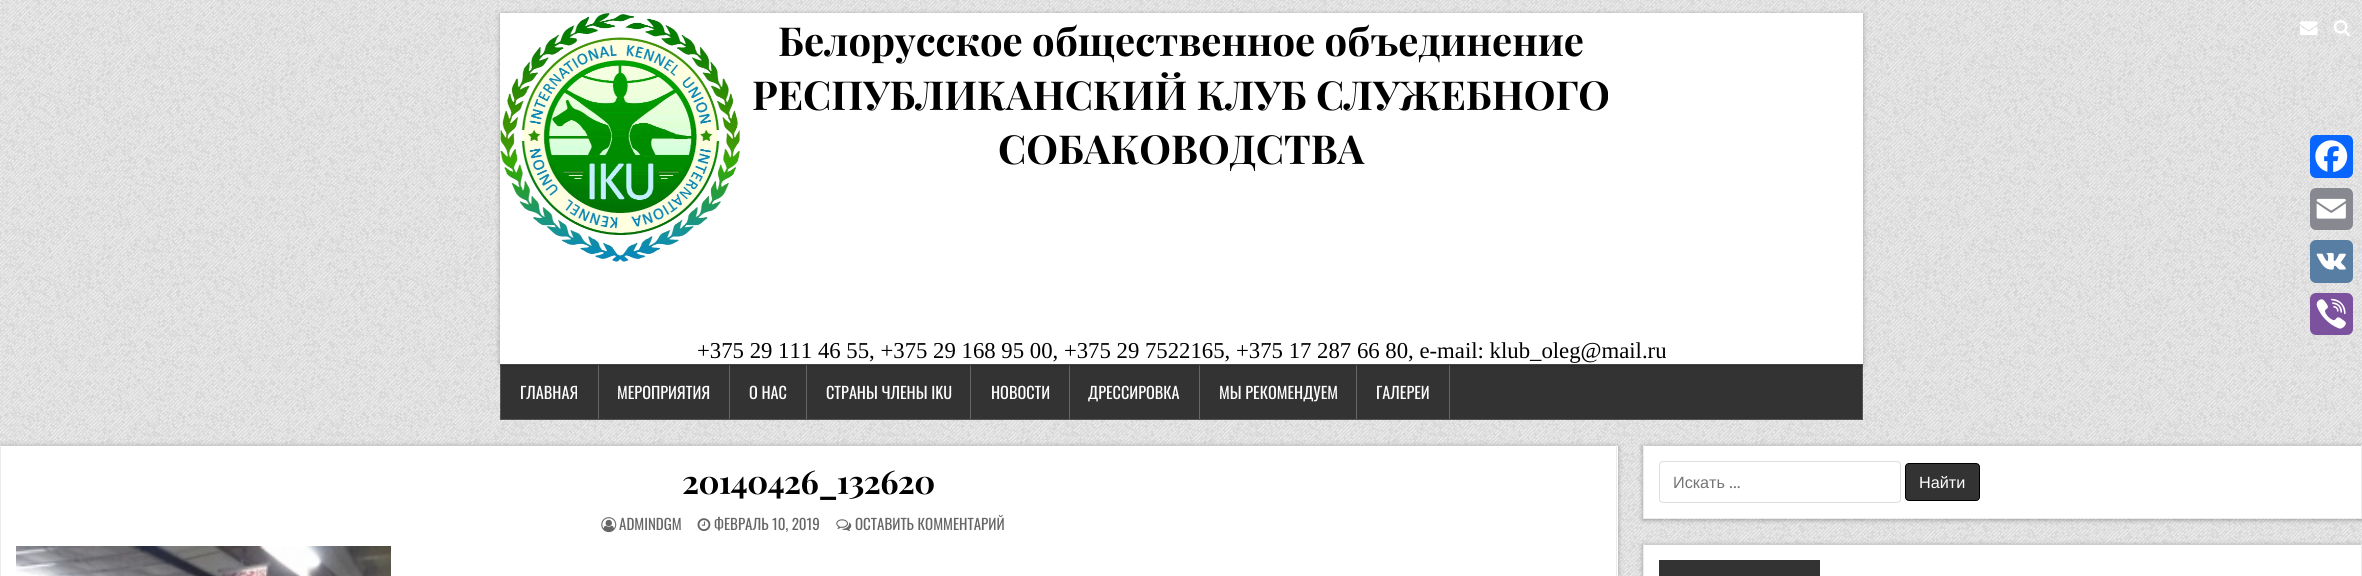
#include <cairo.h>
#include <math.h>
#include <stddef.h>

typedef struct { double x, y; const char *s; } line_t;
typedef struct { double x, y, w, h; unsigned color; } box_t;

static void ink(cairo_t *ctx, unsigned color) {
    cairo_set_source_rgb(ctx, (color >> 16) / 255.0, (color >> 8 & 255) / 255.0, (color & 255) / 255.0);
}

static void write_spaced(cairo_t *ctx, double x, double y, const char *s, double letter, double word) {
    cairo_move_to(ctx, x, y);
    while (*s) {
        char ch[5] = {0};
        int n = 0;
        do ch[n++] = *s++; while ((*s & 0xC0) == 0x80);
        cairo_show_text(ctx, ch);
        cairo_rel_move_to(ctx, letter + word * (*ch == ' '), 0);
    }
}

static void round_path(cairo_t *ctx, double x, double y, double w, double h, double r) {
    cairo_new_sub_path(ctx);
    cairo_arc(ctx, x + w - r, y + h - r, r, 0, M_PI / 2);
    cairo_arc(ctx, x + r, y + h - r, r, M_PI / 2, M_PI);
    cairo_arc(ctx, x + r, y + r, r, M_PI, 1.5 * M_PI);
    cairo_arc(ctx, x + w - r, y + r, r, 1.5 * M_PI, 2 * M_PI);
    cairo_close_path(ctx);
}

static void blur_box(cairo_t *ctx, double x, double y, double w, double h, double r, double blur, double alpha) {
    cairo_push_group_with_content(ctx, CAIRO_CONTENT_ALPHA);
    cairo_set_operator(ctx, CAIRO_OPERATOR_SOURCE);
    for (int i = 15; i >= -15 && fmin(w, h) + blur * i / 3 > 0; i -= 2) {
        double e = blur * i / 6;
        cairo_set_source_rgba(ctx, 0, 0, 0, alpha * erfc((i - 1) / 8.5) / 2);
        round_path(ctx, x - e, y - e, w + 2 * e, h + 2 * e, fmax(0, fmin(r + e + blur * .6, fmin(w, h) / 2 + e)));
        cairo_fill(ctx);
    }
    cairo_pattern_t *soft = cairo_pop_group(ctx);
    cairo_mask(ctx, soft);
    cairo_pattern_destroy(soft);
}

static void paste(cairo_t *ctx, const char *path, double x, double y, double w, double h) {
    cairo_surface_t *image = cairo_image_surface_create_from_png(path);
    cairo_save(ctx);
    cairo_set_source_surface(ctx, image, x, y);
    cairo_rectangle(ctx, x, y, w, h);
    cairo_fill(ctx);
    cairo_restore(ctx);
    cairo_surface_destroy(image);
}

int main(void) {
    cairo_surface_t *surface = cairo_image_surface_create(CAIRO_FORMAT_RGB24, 2362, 576);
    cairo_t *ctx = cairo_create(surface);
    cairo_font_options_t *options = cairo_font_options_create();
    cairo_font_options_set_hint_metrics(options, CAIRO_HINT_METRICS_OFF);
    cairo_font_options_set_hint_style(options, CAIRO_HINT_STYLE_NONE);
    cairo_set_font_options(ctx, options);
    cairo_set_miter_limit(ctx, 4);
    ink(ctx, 0xFFFFFF);
    cairo_paint(ctx);
    paste(ctx, "media/1.png", 0, 0, 2362, 576);
    ink(ctx, 0x333333);
    cairo_rectangle(ctx, 500.5, 364.5, 1362, 55);
    cairo_fill_preserve(ctx);
    ink(ctx, 0x555555);
    cairo_set_line_width(ctx, 1);
    cairo_stroke(ctx);
    {
        static const box_t items[] = {
            {598, 365, 1, 54, 0x666666},
            {729, 365, 1, 54, 0x666666},
            {806, 365, 1, 54, 0x666666},
            {970, 365, 1, 54, 0x666666},
            {1069, 365, 1, 54, 0x666666},
            {1199, 365, 1, 54, 0x666666},
            {1356, 365, 1, 54, 0x666666},
            {1449, 365, 1, 54, 0x666666},
        };
        for (size_t i = 0; i < sizeof items / sizeof *items; i++) {
            ink(ctx, items[i].color);
            cairo_rectangle(ctx, items[i].x, items[i].y, items[i].w, items[i].h);
            cairo_fill(ctx);
        }
    }
    ink(ctx, 0x000000);
    blur_box(ctx, 500, 14, 1363, 351, 0, 2.5, 0.3);
    ink(ctx, 0xFFFFFF);
    cairo_rectangle(ctx, 500, 13, 1363, 351);
    cairo_fill(ctx);
    paste(ctx, "media/2.png", 500, 12, 240, 250);
    cairo_select_font_face(ctx, "Playfair Display", CAIRO_FONT_SLANT_NORMAL, CAIRO_FONT_WEIGHT_BOLD);
    cairo_set_font_size(ctx, 40);
    ink(ctx, 0x000000);
    {
        static const line_t items[] = {
            {778, 56, "Белорусское общественное объединение"},
            {752, 110, "РЕСПУБЛИКАНСКИЙ КЛУБ СЛУЖЕБНОГО"},
            {998, 164, "СОБАКОВОДСТВА"},
        };
        for (size_t i = 0; i < sizeof items / sizeof *items; i++) {
            cairo_move_to(ctx, items[i].x, items[i].y);
            cairo_show_text(ctx, items[i].s);
        }
    }
    cairo_select_font_face(ctx, "Liberation Serif", CAIRO_FONT_SLANT_NORMAL, CAIRO_FONT_WEIGHT_NORMAL);
    cairo_set_font_size(ctx, 22.75);
    cairo_move_to(ctx, 697, 358);
    cairo_show_text(ctx, "+375 29 111 46 55, +375 29 168 95 00, +375 29 7522165, +375 17 287 66 80, e-mail: klub_oleg@mail.ru");
    paste(ctx, "media/3.png", 2300, 21, 18, 14);
    paste(ctx, "media/4.png", 2333, 20, 17, 17);
    cairo_select_font_face(ctx, "Oswald", CAIRO_FONT_SLANT_NORMAL, CAIRO_FONT_WEIGHT_NORMAL);
    cairo_set_font_size(ctx, 16.25);
    ink(ctx, 0xFFFFFF);
    {
        static const line_t items[] = {
            {520, 399, "ГЛАВНАЯ"},
            {617, 399, "МЕРОПРИЯТИЯ"},
            {749, 399, "О НАС"},
            {826, 399, "СТРАНЫ ЧЛЕНЫ IKU"},
            {991, 399, "НОВОСТИ"},
            {1088, 399, "ДРЕССИРОВКА"},
            {1219, 399, "МЫ РЕКОМЕНДУЕМ"},
            {1376, 399, "ГАЛЕРЕИ"},
        };
        for (size_t i = 0; i < sizeof items / sizeof *items; i++) {
            cairo_move_to(ctx, items[i].x, items[i].y);
            cairo_show_text(ctx, items[i].s);
        }
    }
    ink(ctx, 0x0866FF);
    round_path(ctx, 2310, 135, 43, 43, 6);
    cairo_fill(ctx);
    paste(ctx, "media/5.png", 2315, 140, 33, 32);
    ink(ctx, 0x888990);
    round_path(ctx, 2310, 188, 43, 42, 6);
    cairo_fill(ctx);
    paste(ctx, "media/6.png", 2316, 198, 30, 21);
    ink(ctx, 0x587EA3);
    round_path(ctx, 2310, 240, 43, 43, 6);
    cairo_fill(ctx);
    paste(ctx, "media/7.png", 2316, 252, 30, 18);
    ink(ctx, 0x7C529E);
    round_path(ctx, 2310, 293, 43, 42, 6);
    cairo_fill(ctx);
    paste(ctx, "media/8.png", 2316, 298, 30, 31);
    ink(ctx, 0x000000);
    blur_box(ctx, 0, 446, 1618, 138, 0, 2.5, 0.3);
    {
        static const box_t items[] = {
            {1, 446, 1617, 130, 0xFFFFFF},
            {0, 445, 1618, 1, 0xCCCCCC},
            {1616, 445, 1, 131, 0xECECEC},
            {0, 445, 1, 131, 0xECECEC},
        };
        for (size_t i = 0; i < sizeof items / sizeof *items; i++) {
            ink(ctx, items[i].color);
            cairo_rectangle(ctx, items[i].x, items[i].y, items[i].w, items[i].h);
            cairo_fill(ctx);
        }
    }
    cairo_select_font_face(ctx, "Playfair Display", CAIRO_FONT_SLANT_NORMAL, CAIRO_FONT_WEIGHT_BOLD);
    cairo_set_font_size(ctx, 32.5);
    ink(ctx, 0x000000);
    write_spaced(ctx, 682, 494, "20140426_132620", -0.6, 0);
    paste(ctx, "media/9.png", 601, 517, 16, 16);
    cairo_select_font_face(ctx, "Oswald", CAIRO_FONT_SLANT_NORMAL, CAIRO_FONT_WEIGHT_NORMAL);
    cairo_set_font_size(ctx, 15);
    ink(ctx, 0x666666);
    cairo_move_to(ctx, 619, 530);
    cairo_show_text(ctx, "ADMINDGM");
    paste(ctx, "media/10.png", 697, 518, 14, 14);
    cairo_move_to(ctx, 714, 530);
    cairo_show_text(ctx, "ФЕВРАЛЬ 10, 2019");
    paste(ctx, "media/11.png", 836, 519, 16, 12);
    cairo_move_to(ctx, 855, 530);
    cairo_show_text(ctx, "ОСТАВИТЬ КОММЕНТАРИЙ");
    paste(ctx, "media/12.png", 16, 546, 375, 30);
    ink(ctx, 0x000000);
    blur_box(ctx, 1643, 446, 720, 74, 0, 2.5, 0.3);
    {
        static const box_t items[] = {
            {1644, 446, 717, 72, 0xFFFFFF},
            {1643, 445, 719, 1, 0xCCCCCC},
            {2361, 445, 1, 74, 0xECECEC},
            {1643, 518, 719, 1, 0xECECEC},
            {1643, 445, 1, 74, 0xECECEC},
        };
        for (size_t i = 0; i < sizeof items / sizeof *items; i++) {
            ink(ctx, items[i].color);
            cairo_rectangle(ctx, items[i].x, items[i].y, items[i].w, items[i].h);
            cairo_fill(ctx);
        }
    }
    round_path(ctx, 1659.5, 461.5, 241, 41, 3.5);
    ink(ctx, 0xDDDDDD);
    cairo_stroke(ctx);
    cairo_select_font_face(ctx, "Liberation Sans", CAIRO_FONT_SLANT_NORMAL, CAIRO_FONT_WEIGHT_NORMAL);
    cairo_set_font_size(ctx, 16.25);
    ink(ctx, 0x757575);
    cairo_move_to(ctx, 1673, 488);
    cairo_show_text(ctx, "Искать");
    cairo_select_font_face(ctx, "Domine", CAIRO_FONT_SLANT_NORMAL, CAIRO_FONT_WEIGHT_NORMAL);
    cairo_move_to(ctx, 1729, 488);
    cairo_show_text(ctx, "…");
    ink(ctx, 0x333333);
    round_path(ctx, 1905.5, 463.5, 74, 37, 3.5);
    cairo_fill_preserve(ctx);
    ink(ctx, 0x000000);
    cairo_stroke(ctx);
    cairo_select_font_face(ctx, "Liberation Sans", CAIRO_FONT_SLANT_NORMAL, CAIRO_FONT_WEIGHT_NORMAL);
    ink(ctx, 0xFFFFFF);
    cairo_move_to(ctx, 1919, 488);
    cairo_show_text(ctx, "Найти");
    ink(ctx, 0x000000);
    blur_box(ctx, 1643, 545, 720, 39, 0, 2.5, 0.3);
    {
        static const box_t items[] = {
            {1644, 545, 717, 31, 0xFFFFFF},
            {1643, 544, 719, 1, 0xCCCCCC},
            {2361, 544, 1, 32, 0xECECEC},
            {1643, 544, 1, 32, 0xECECEC},
            {1659, 560, 161, 16, 0x333333},
        };
        for (size_t i = 0; i < sizeof items / sizeof *items; i++) {
            ink(ctx, items[i].color);
            cairo_rectangle(ctx, items[i].x, items[i].y, items[i].w, items[i].h);
            cairo_fill(ctx);
        }
    }
    cairo_surface_write_to_png(surface, "image.png");
    cairo_font_options_destroy(options);
    cairo_destroy(ctx);
    cairo_surface_destroy(surface);
    return 0;
}
